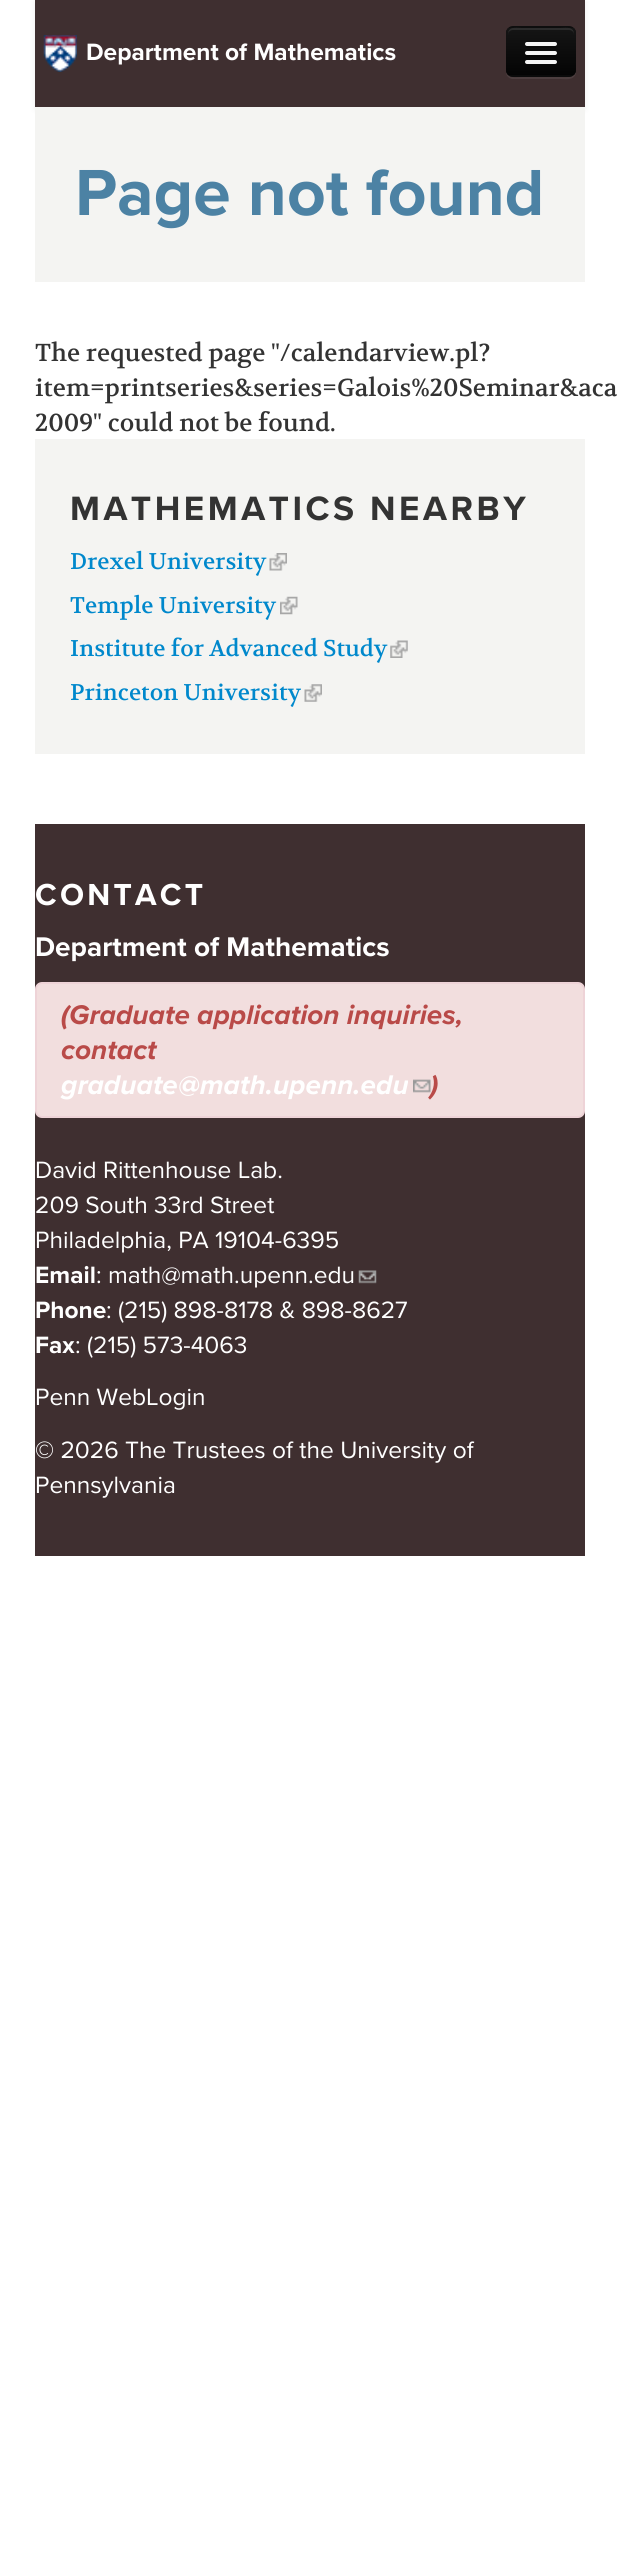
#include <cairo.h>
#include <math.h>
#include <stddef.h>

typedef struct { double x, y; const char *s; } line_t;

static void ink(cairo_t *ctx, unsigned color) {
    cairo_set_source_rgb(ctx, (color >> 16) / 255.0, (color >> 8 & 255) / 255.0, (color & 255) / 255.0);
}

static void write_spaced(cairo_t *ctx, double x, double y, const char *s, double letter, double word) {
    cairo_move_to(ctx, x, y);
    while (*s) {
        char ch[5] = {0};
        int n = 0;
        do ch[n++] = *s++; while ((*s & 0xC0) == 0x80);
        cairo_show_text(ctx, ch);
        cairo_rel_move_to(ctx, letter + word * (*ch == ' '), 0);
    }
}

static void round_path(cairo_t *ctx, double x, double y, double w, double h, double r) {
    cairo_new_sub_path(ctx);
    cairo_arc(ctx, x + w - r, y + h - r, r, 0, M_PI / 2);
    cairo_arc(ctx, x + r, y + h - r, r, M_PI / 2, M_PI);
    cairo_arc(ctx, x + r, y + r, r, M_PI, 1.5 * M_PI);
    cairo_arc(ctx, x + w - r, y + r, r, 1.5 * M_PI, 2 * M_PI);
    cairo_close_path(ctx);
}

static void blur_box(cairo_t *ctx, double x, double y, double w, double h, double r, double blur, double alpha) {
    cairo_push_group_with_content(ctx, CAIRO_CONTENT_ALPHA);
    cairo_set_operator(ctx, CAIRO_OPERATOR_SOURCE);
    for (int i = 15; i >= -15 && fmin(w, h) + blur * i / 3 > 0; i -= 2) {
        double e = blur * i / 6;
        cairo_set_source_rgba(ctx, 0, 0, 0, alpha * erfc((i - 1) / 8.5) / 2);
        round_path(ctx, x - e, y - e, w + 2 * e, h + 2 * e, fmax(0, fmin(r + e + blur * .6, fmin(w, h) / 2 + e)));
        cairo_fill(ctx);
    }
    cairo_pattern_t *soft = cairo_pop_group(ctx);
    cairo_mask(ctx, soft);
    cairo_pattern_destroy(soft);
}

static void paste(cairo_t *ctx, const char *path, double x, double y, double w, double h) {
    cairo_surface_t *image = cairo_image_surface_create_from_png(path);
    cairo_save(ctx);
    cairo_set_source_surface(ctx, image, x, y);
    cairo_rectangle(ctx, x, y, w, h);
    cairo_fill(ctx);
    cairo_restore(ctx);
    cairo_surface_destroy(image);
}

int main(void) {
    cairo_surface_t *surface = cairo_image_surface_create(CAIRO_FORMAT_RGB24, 619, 2570);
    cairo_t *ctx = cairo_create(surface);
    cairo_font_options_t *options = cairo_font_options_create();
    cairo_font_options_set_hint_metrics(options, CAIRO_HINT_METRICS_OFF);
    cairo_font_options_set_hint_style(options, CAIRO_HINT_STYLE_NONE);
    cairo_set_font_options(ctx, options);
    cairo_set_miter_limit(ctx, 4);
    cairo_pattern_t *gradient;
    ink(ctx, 0xFFFFFF);
    cairo_paint(ctx);
    ink(ctx, 0x3F2F30);
    cairo_rectangle(ctx, 35, 0, 550, 107);
    cairo_fill(ctx);
    cairo_save(ctx);
    cairo_set_fill_rule(ctx, CAIRO_FILL_RULE_EVEN_ODD);
    cairo_new_path(ctx);
    cairo_move_to(ctx, 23, 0);
    cairo_line_to(ctx, 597, 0);
    cairo_line_to(ctx, 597, 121);
    cairo_line_to(ctx, 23, 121);
    cairo_close_path(ctx);
    cairo_move_to(ctx, 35, 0);
    cairo_line_to(ctx, 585, 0);
    cairo_line_to(ctx, 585, 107);
    cairo_line_to(ctx, 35, 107);
    cairo_close_path(ctx);
    cairo_clip(ctx);
    ink(ctx, 0x000000);
    blur_box(ctx, 35, 2, 550, 107, 0, 3.5, 0.07);
    cairo_restore(ctx);
    paste(ctx, "media/1.png", 43, 35, 34, 37);
    cairo_select_font_face(ctx, "Proxima Nova", CAIRO_FONT_SLANT_NORMAL, CAIRO_FONT_WEIGHT_BOLD);
    cairo_set_font_size(ctx, 24.5);
    ink(ctx, 0xFFFFFF);
    cairo_move_to(ctx, 86, 60);
    cairo_show_text(ctx, "Department of Mathematics");
    ink(ctx, 0x4D3F40);
    cairo_new_path(ctx);
    cairo_move_to(ctx, 506, 72);
    cairo_curve_to(ctx, 506, 75, 508, 78, 512, 79);
    cairo_line_to(ctx, 560, 79);
    cairo_curve_to(ctx, 565, 79, 574, 81, 576, 73);
    cairo_line_to(ctx, 576, 33);
    cairo_line_to(ctx, 576, 71);
    cairo_line_to(ctx, 574, 75);
    cairo_curve_to(ctx, 570, 78, 563, 77, 559, 77);
    cairo_line_to(ctx, 522, 77);
    cairo_curve_to(ctx, 517, 77, 508, 79, 506, 72);
    cairo_close_path(ctx);
    cairo_fill(ctx);
    ink(ctx, 0x0E0E0E);
    round_path(ctx, 506, 26, 70, 51, 7);
    cairo_fill(ctx);
    cairo_save(ctx);
    round_path(ctx, 506, 26, 70, 51, 7);
    cairo_clip(ctx);
    gradient = cairo_pattern_create_linear(541, 28, 541, 75);
    cairo_pattern_add_color_stop_rgba(gradient, 0, 0.082, 0.082, 0.082, 1);
    cairo_pattern_add_color_stop_rgba(gradient, 1, 0.016, 0.016, 0.016, 1);
    cairo_set_source(ctx, gradient);
    cairo_pattern_destroy(gradient);
    cairo_rectangle(ctx, 506, 28, 70, 47);
    cairo_fill(ctx);
    cairo_restore(ctx);
    ink(ctx, 0x2C2C2C);
    cairo_new_path(ctx);
    cairo_move_to(ctx, 513, 30);
    cairo_line_to(ctx, 569, 30);
    cairo_curve_to(ctx, 572, 30, 574, 32, 574, 35);
    cairo_curve_to(ctx, 574, 26, 567, 28, 560, 28);
    cairo_line_to(ctx, 522, 28);
    cairo_curve_to(ctx, 515, 28, 508, 26, 508, 35);
    cairo_curve_to(ctx, 508, 32, 510, 30, 513, 30);
    cairo_close_path(ctx);
    cairo_fill(ctx);
    cairo_new_path(ctx);
    cairo_move_to(ctx, 573, 74.5);
    cairo_curve_to(ctx, 572, 75.5, 570.5, 76, 569, 76);
    cairo_line_to(ctx, 513, 76);
    cairo_curve_to(ctx, 511, 76, 509.5, 75.5, 508.5, 74.5);
    cairo_set_source_rgba(ctx, 0, 0, 0, 0.25);
    cairo_set_line_width(ctx, 1.8);
    cairo_stroke(ctx);
    ink(ctx, 0x0B0B0B);
    cairo_new_path(ctx);
    cairo_move_to(ctx, 525.5, 45);
    cairo_line_to(ctx, 525, 46.5);
    cairo_curve_to(ctx, 525.5, 49, 530.5, 48, 531.5, 48);
    cairo_line_to(ctx, 550.5, 48);
    cairo_curve_to(ctx, 552, 48, 557, 49, 557, 46);
    cairo_line_to(ctx, 556.5, 44.5);
    cairo_curve_to(ctx, 556, 45, 555.5, 45.5, 555, 45.5);
    cairo_line_to(ctx, 526.5, 45.5);
    cairo_close_path(ctx);
    cairo_fill(ctx);
    ink(ctx, 0xF5F5F5);
    round_path(ctx, 525, 42, 32, 4, 2);
    cairo_fill(ctx);
    ink(ctx, 0x080808);
    cairo_new_path(ctx);
    cairo_move_to(ctx, 525.5, 53.5);
    cairo_curve_to(ctx, 525, 54, 525, 55, 525, 55.5);
    cairo_curve_to(ctx, 525.5, 58, 530.5, 57, 531.5, 57);
    cairo_line_to(ctx, 555, 57);
    cairo_curve_to(ctx, 557, 57, 557.5, 54.5, 556, 53.5);
    cairo_line_to(ctx, 555, 54);
    cairo_line_to(ctx, 526.5, 54);
    cairo_close_path(ctx);
    cairo_fill(ctx);
    ink(ctx, 0xF5F5F5);
    round_path(ctx, 525, 51, 32, 4, 2);
    cairo_fill(ctx);
    round_path(ctx, 525, 60, 32, 4, 2);
    cairo_fill(ctx);
    ink(ctx, 0xF4F4F2);
    cairo_rectangle(ctx, 35, 107, 550, 175);
    cairo_fill(ctx);
    cairo_set_font_size(ctx, 67.5);
    ink(ctx, 0x4C82A4);
    cairo_move_to(ctx, 75, 215);
    cairo_show_text(ctx, "Page not found");
    cairo_select_font_face(ctx, "Volkhov", CAIRO_FONT_SLANT_NORMAL, CAIRO_FONT_WEIGHT_NORMAL);
    cairo_set_font_size(ctx, 24.5);
    ink(ctx, 0x333333);
    {
        static const line_t items[] = {
            {35, 361, "The requested page \"/calendarview.pl?"},
            {35, 396, "item=printseries&series=Galois%20Seminar&aca"},
            {35, 431, "2009\" could not be found."},
        };
        for (size_t i = 0; i < sizeof items / sizeof *items; i++) {
            cairo_move_to(ctx, items[i].x, items[i].y);
            cairo_show_text(ctx, items[i].s);
        }
    }
    ink(ctx, 0xF4F4F2);
    cairo_rectangle(ctx, 35, 439, 550, 315);
    cairo_fill(ctx);
    cairo_select_font_face(ctx, "Proxima Nova", CAIRO_FONT_SLANT_NORMAL, CAIRO_FONT_WEIGHT_BOLD);
    cairo_set_font_size(ctx, 35);
    ink(ctx, 0x333333);
    write_spaced(ctx, 70, 520, "MATHEMATICS NEARBY", 3.5, 0);
    cairo_select_font_face(ctx, "Volkhov", CAIRO_FONT_SLANT_NORMAL, CAIRO_FONT_WEIGHT_NORMAL);
    cairo_set_font_size(ctx, 22.75);
    ink(ctx, 0x0088CC);
    cairo_move_to(ctx, 70, 569);
    cairo_show_text(ctx, "Drexel University");
    paste(ctx, "media/2.png", 269, 553, 18, 18);
    cairo_move_to(ctx, 70, 613);
    cairo_show_text(ctx, "Temple University");
    paste(ctx, "media/3.png", 280, 596, 18, 19);
    cairo_move_to(ctx, 70, 656);
    cairo_show_text(ctx, "Institute for Advanced Study");
    paste(ctx, "media/4.png", 390, 640, 18, 18);
    cairo_move_to(ctx, 70, 700);
    cairo_show_text(ctx, "Princeton University");
    paste(ctx, "media/5.png", 304, 684, 18, 18);
    ink(ctx, 0x3F2F30);
    cairo_rectangle(ctx, 35, 824, 550, 732);
    cairo_fill(ctx);
    cairo_select_font_face(ctx, "Proxima Nova", CAIRO_FONT_SLANT_NORMAL, CAIRO_FONT_WEIGHT_BOLD);
    cairo_set_font_size(ctx, 31.5);
    ink(ctx, 0xFFFFFF);
    write_spaced(ctx, 35, 905, "CONTACT", 3.25, 0);
    cairo_set_font_size(ctx, 28);
    cairo_move_to(ctx, 35, 956);
    cairo_show_text(ctx, "Department of Mathematics");
    ink(ctx, 0xF2DEDE);
    round_path(ctx, 36, 983, 548, 134, 6);
    cairo_fill_preserve(ctx);
    ink(ctx, 0xEED3D7);
    cairo_set_line_width(ctx, 2);
    cairo_stroke(ctx);
    cairo_select_font_face(ctx, "Proxima Nova", CAIRO_FONT_SLANT_ITALIC, CAIRO_FONT_WEIGHT_BOLD);
    ink(ctx, 0xB94A48);
    cairo_move_to(ctx, 61, 1024);
    cairo_show_text(ctx, "(Graduate application inquiries,");
    cairo_move_to(ctx, 61, 1059);
    cairo_show_text(ctx, "contact");
    ink(ctx, 0xFFFFFF);
    cairo_move_to(ctx, 61, 1094);
    cairo_show_text(ctx, "graduate@math.upenn.edu");
    paste(ctx, "media/6.png", 413, 1079, 18, 14);
    ink(ctx, 0xB94A48);
    cairo_move_to(ctx, 430, 1094);
    cairo_show_text(ctx, ")");
    cairo_select_font_face(ctx, "Proxima Nova", CAIRO_FONT_SLANT_NORMAL, CAIRO_FONT_WEIGHT_NORMAL);
    cairo_set_font_size(ctx, 24.5);
    ink(ctx, 0xFFFFFF);
    {
        static const line_t items[] = {
            {35, 1178, "David Rittenhouse Lab."},
            {35, 1213, "209 South 33rd Street"},
            {35, 1248, "Philadelphia, PA 19104-6395"},
        };
        for (size_t i = 0; i < sizeof items / sizeof *items; i++) {
            cairo_move_to(ctx, items[i].x, items[i].y);
            cairo_show_text(ctx, items[i].s);
        }
    }
    cairo_select_font_face(ctx, "Proxima Nova", CAIRO_FONT_SLANT_NORMAL, CAIRO_FONT_WEIGHT_BOLD);
    cairo_move_to(ctx, 35, 1283);
    cairo_show_text(ctx, "Email");
    cairo_select_font_face(ctx, "Proxima Nova", CAIRO_FONT_SLANT_NORMAL, CAIRO_FONT_WEIGHT_NORMAL);
    cairo_move_to(ctx, 96, 1283);
    cairo_show_text(ctx, ": math@math.upenn.edu");
    paste(ctx, "media/7.png", 358, 1270, 19, 14);
    cairo_select_font_face(ctx, "Proxima Nova", CAIRO_FONT_SLANT_NORMAL, CAIRO_FONT_WEIGHT_BOLD);
    cairo_move_to(ctx, 35, 1318);
    cairo_show_text(ctx, "Phone");
    cairo_select_font_face(ctx, "Proxima Nova", CAIRO_FONT_SLANT_NORMAL, CAIRO_FONT_WEIGHT_NORMAL);
    cairo_move_to(ctx, 106, 1318);
    cairo_show_text(ctx, ": (215) 898-8178 & 898-8627");
    cairo_select_font_face(ctx, "Proxima Nova", CAIRO_FONT_SLANT_NORMAL, CAIRO_FONT_WEIGHT_BOLD);
    cairo_move_to(ctx, 35, 1353);
    cairo_show_text(ctx, "Fax");
    cairo_select_font_face(ctx, "Proxima Nova", CAIRO_FONT_SLANT_NORMAL, CAIRO_FONT_WEIGHT_NORMAL);
    {
        static const line_t items[] = {
            {75, 1353, ": (215) 573-4063"},
            {35, 1405, "Penn WebLogin"},
            {35, 1458, "© 2026 The Trustees of the University of"},
            {35, 1493, "Pennsylvania"},
        };
        for (size_t i = 0; i < sizeof items / sizeof *items; i++) {
            cairo_move_to(ctx, items[i].x, items[i].y);
            cairo_show_text(ctx, items[i].s);
        }
    }
    cairo_surface_write_to_png(surface, "image.png");
    cairo_font_options_destroy(options);
    cairo_destroy(ctx);
    cairo_surface_destroy(surface);
    return 0;
}
